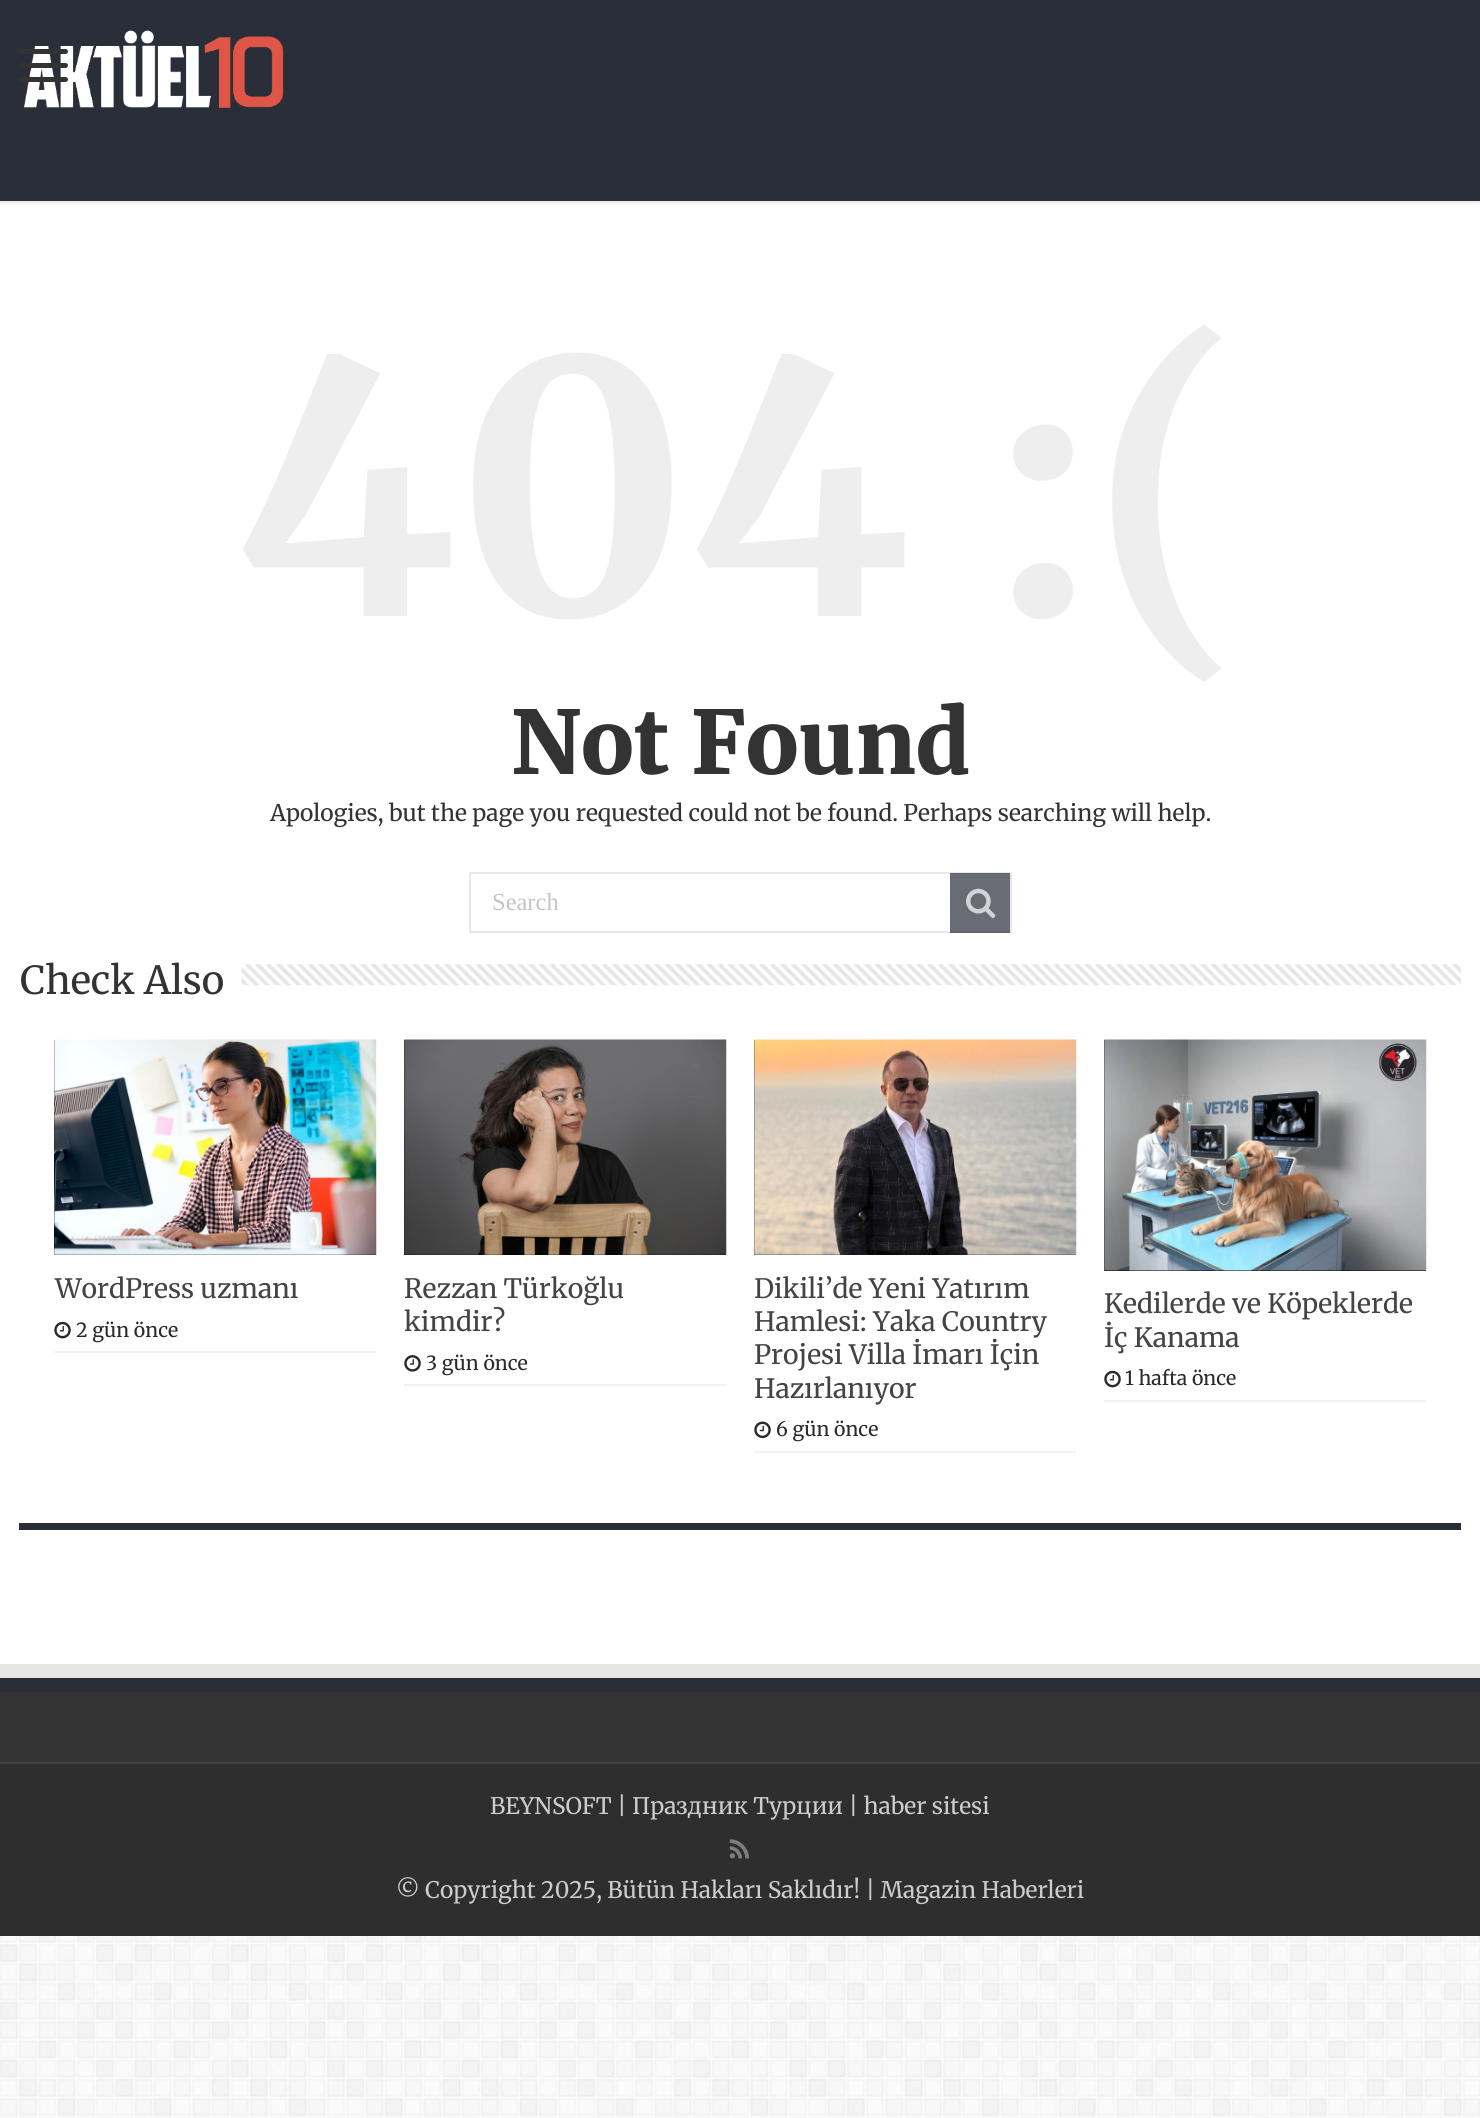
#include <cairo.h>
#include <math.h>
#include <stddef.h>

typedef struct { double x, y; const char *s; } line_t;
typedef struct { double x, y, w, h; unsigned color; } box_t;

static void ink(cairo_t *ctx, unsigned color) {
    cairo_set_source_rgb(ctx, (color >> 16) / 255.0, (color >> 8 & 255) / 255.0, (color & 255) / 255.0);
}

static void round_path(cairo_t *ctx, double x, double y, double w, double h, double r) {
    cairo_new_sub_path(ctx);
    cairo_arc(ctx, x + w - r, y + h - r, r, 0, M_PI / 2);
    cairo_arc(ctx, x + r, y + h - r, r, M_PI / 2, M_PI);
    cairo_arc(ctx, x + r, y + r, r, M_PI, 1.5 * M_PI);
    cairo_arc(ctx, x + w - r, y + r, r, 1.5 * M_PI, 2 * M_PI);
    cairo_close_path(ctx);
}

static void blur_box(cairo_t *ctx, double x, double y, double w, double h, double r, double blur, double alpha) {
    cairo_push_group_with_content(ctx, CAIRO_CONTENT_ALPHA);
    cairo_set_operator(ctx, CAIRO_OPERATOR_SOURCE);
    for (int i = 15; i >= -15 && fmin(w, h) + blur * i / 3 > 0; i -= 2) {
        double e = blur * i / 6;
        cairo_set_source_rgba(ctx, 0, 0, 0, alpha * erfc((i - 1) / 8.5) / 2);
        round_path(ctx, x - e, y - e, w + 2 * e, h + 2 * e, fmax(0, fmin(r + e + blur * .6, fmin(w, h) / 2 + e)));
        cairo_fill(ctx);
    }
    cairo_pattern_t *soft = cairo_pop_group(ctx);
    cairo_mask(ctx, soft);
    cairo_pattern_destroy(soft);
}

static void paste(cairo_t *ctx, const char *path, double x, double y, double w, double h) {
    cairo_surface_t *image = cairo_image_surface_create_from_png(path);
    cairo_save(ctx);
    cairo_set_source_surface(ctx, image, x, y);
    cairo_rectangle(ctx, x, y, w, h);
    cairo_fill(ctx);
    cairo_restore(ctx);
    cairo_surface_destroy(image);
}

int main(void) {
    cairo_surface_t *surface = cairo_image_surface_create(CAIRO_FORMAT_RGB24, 1480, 2118);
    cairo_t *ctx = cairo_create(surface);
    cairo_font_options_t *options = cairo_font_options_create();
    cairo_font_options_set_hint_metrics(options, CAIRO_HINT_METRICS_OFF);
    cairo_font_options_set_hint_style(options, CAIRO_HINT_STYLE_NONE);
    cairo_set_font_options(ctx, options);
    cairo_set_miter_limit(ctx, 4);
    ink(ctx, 0xFFFFFF);
    cairo_paint(ctx);
    paste(ctx, "media/1.png", 0, 1936, 1480, 182);
    ink(ctx, 0xCACACA);
    blur_box(ctx, 0, 0, 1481, 201, 0, 2.5, 1);
    ink(ctx, 0x2A2E39);
    cairo_rectangle(ctx, 0, 0, 1480, 201);
    cairo_fill(ctx);
    paste(ctx, "media/2.png", 24, 30, 260, 78);
    ink(ctx, 0x333333);
    round_path(ctx, 19, 49, 49, 5, 2.5);
    cairo_fill(ctx);
    round_path(ctx, 19, 63, 49, 5, 2.5);
    cairo_fill(ctx);
    round_path(ctx, 19, 77, 49, 5, 2.5);
    cairo_fill(ctx);
    cairo_select_font_face(ctx, "Merriweather", CAIRO_FONT_SLANT_NORMAL, CAIRO_FONT_WEIGHT_BOLD);
    cairo_set_font_size(ctx, 350);
    ink(ctx, 0xEEEEEE);
    cairo_move_to(ctx, 234, 616);
    cairo_show_text(ctx, "404 :(");
    cairo_select_font_face(ctx, "Merriweather Black", CAIRO_FONT_SLANT_NORMAL, CAIRO_FONT_WEIGHT_NORMAL);
    cairo_set_font_size(ctx, 87.5);
    ink(ctx, 0x333333);
    cairo_move_to(ctx, 511, 774);
    cairo_show_text(ctx, "Not Found");
    cairo_select_font_face(ctx, "Merriweather", CAIRO_FONT_SLANT_NORMAL, CAIRO_FONT_WEIGHT_NORMAL);
    cairo_set_font_size(ctx, 22.75);
    cairo_move_to(ctx, 270, 821);
    cairo_show_text(ctx, "Apologies, but the page you requested could not be found. Perhaps searching will help.");
    cairo_rectangle(ctx, 470, 873, 541, 59);
    ink(ctx, 0xE8E8E8);
    cairo_stroke(ctx);
    cairo_select_font_face(ctx, "Liberation Serif", CAIRO_FONT_SLANT_NORMAL, CAIRO_FONT_WEIGHT_NORMAL);
    cairo_set_font_size(ctx, 24.5);
    ink(ctx, 0xC5C5C5);
    cairo_move_to(ctx, 492, 910);
    cairo_show_text(ctx, "Search");
    cairo_set_source_rgba(ctx, 0.165, 0.18, 0.224, 0.7);
    cairo_rectangle(ctx, 950, 873, 60, 60);
    cairo_fill(ctx);
    paste(ctx, "media/3.png", 966, 888, 30, 30);
    cairo_select_font_face(ctx, "Merriweather", CAIRO_FONT_SLANT_NORMAL, CAIRO_FONT_WEIGHT_NORMAL);
    cairo_set_font_size(ctx, 38.5);
    ink(ctx, 0x333333);
    cairo_move_to(ctx, 20, 994);
    cairo_show_text(ctx, "Check Also");
    paste(ctx, "media/4.png", 241, 964, 1220, 22);
    ink(ctx, 0x2A2E39);
    cairo_rectangle(ctx, 19, 1523, 1442, 7);
    cairo_fill(ctx);
    ink(ctx, 0x000000);
    cairo_rectangle(ctx, 54, 1040, 322, 215);
    cairo_fill(ctx);
    paste(ctx, "media/5.png", 54, 1039, 323, 216);
    cairo_set_font_size(ctx, 26.6);
    ink(ctx, 0x444444);
    cairo_move_to(ctx, 55, 1298);
    cairo_show_text(ctx, "WordPress uzmanı");
    ink(ctx, 0xF2F2F2);
    cairo_rectangle(ctx, 54, 1351, 322, 2);
    cairo_fill(ctx);
    paste(ctx, "media/6.png", 54, 1321, 17, 18);
    cairo_set_font_size(ctx, 19.5);
    ink(ctx, 0x2A2A2A);
    cairo_move_to(ctx, 76, 1337);
    cairo_show_text(ctx, "2 gün önce");
    ink(ctx, 0x000000);
    cairo_rectangle(ctx, 404, 1040, 322, 215);
    cairo_fill(ctx);
    paste(ctx, "media/7.png", 404, 1039, 323, 216);
    cairo_set_font_size(ctx, 26.6);
    ink(ctx, 0x444444);
    cairo_move_to(ctx, 404, 1298);
    cairo_show_text(ctx, "Rezzan Türkoğlu");
    cairo_move_to(ctx, 404, 1331);
    cairo_show_text(ctx, "kimdir?");
    ink(ctx, 0xF2F2F2);
    cairo_rectangle(ctx, 404, 1384, 322, 2);
    cairo_fill(ctx);
    paste(ctx, "media/8.png", 404, 1355, 17, 17);
    cairo_set_font_size(ctx, 19.5);
    ink(ctx, 0x2A2A2A);
    cairo_move_to(ctx, 426, 1370);
    cairo_show_text(ctx, "3 gün önce");
    ink(ctx, 0x000000);
    cairo_rectangle(ctx, 754, 1040, 322, 215);
    cairo_fill(ctx);
    paste(ctx, "media/9.png", 754, 1039, 323, 216);
    cairo_set_font_size(ctx, 26.6);
    ink(ctx, 0x444444);
    {
        static const line_t items[] = {
            {754, 1298, "Dikili’de Yeni Yatırım"},
            {754, 1331, "Hamlesi: Yaka Country"},
            {754, 1364, "Projesi Villa İmarı İçin"},
            {754, 1398, "Hazırlanıyor"},
        };
        for (size_t i = 0; i < sizeof items / sizeof *items; i++) {
            cairo_move_to(ctx, items[i].x, items[i].y);
            cairo_show_text(ctx, items[i].s);
        }
    }
    ink(ctx, 0xF2F2F2);
    cairo_rectangle(ctx, 754, 1451, 322, 2);
    cairo_fill(ctx);
    paste(ctx, "media/10.png", 754, 1421, 17, 18);
    cairo_set_font_size(ctx, 19.5);
    ink(ctx, 0x2A2A2A);
    cairo_move_to(ctx, 776, 1436);
    cairo_show_text(ctx, "6 gün önce");
    ink(ctx, 0x000000);
    cairo_rectangle(ctx, 1104, 1040, 322, 231);
    cairo_fill(ctx);
    paste(ctx, "media/11.png", 1104, 1039, 323, 232);
    cairo_set_font_size(ctx, 26.6);
    ink(ctx, 0x444444);
    cairo_move_to(ctx, 1104, 1313);
    cairo_show_text(ctx, "Kedilerde ve Köpeklerde");
    cairo_move_to(ctx, 1104, 1347);
    cairo_show_text(ctx, "İç Kanama");
    ink(ctx, 0xF2F2F2);
    cairo_rectangle(ctx, 1104, 1400, 322, 2);
    cairo_fill(ctx);
    paste(ctx, "media/6.png", 1104, 1370, 17, 18);
    cairo_set_font_size(ctx, 19.5);
    ink(ctx, 0x2A2A2A);
    cairo_move_to(ctx, 1125, 1385);
    cairo_show_text(ctx, "1 hafta önce");
    ink(ctx, 0xE6E6E6);
    cairo_new_path(ctx);
    cairo_move_to(ctx, 0, 1664);
    cairo_line_to(ctx, 0, 1678);
    cairo_line_to(ctx, 1480, 1678);
    cairo_line_to(ctx, 1480, 1748);
    cairo_line_to(ctx, 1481, 1748);
    cairo_line_to(ctx, 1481, 1664);
    cairo_close_path(ctx);
    cairo_fill(ctx);
    {
        static const box_t items[] = {
            {0, 1692, 1480, 70, 0x333333},
            {0, 1678, 1480, 14, 0x2A2E39},
            {0, 1764, 1480, 172, 0x2E2E2E},
            {0, 1762, 1480, 2, 0x444444},
        };
        for (size_t i = 0; i < sizeof items / sizeof *items; i++) {
            ink(ctx, items[i].color);
            cairo_rectangle(ctx, items[i].x, items[i].y, items[i].w, items[i].h);
            cairo_fill(ctx);
        }
    }
    cairo_set_font_size(ctx, 22.75);
    ink(ctx, 0xCCCCCC);
    cairo_move_to(ctx, 490, 1814);
    cairo_show_text(ctx, "BEYNSOFT | Праздник Турции | haber sitesi");
    paste(ctx, "media/12.png", 729, 1839, 20, 20);
    cairo_move_to(ctx, 396, 1898);
    cairo_show_text(ctx, "© Copyright 2025, Bütün Hakları Saklıdır! | Magazin Haberleri");
    cairo_surface_write_to_png(surface, "image.png");
    cairo_font_options_destroy(options);
    cairo_destroy(ctx);
    cairo_surface_destroy(surface);
    return 0;
}
